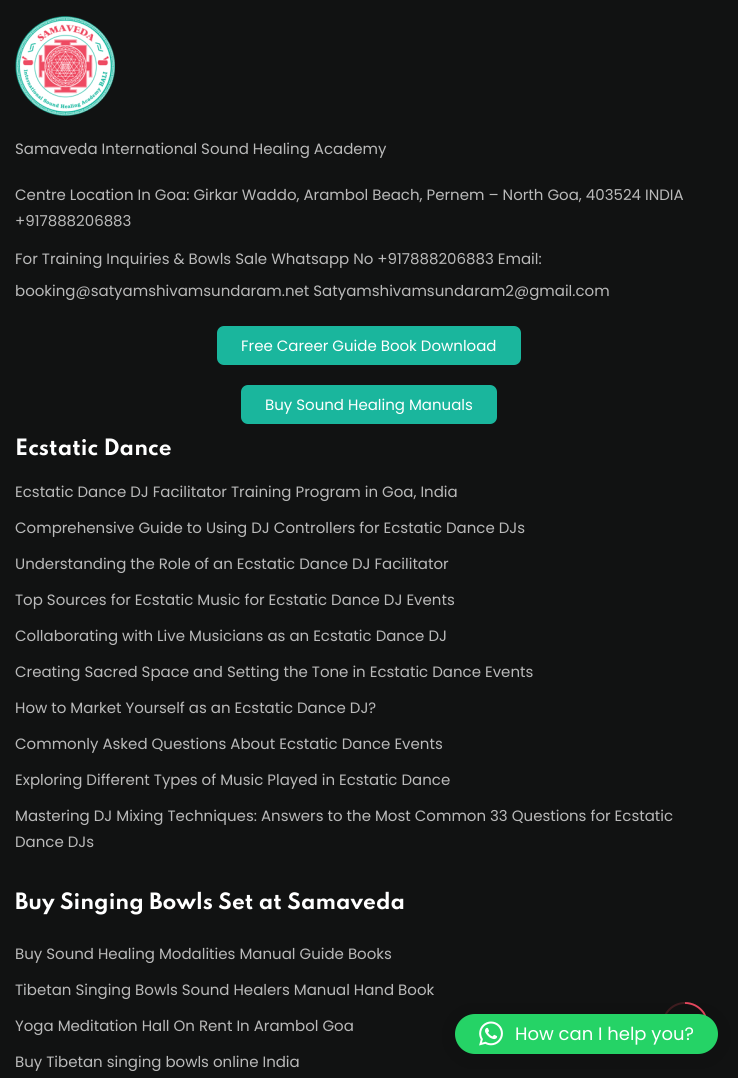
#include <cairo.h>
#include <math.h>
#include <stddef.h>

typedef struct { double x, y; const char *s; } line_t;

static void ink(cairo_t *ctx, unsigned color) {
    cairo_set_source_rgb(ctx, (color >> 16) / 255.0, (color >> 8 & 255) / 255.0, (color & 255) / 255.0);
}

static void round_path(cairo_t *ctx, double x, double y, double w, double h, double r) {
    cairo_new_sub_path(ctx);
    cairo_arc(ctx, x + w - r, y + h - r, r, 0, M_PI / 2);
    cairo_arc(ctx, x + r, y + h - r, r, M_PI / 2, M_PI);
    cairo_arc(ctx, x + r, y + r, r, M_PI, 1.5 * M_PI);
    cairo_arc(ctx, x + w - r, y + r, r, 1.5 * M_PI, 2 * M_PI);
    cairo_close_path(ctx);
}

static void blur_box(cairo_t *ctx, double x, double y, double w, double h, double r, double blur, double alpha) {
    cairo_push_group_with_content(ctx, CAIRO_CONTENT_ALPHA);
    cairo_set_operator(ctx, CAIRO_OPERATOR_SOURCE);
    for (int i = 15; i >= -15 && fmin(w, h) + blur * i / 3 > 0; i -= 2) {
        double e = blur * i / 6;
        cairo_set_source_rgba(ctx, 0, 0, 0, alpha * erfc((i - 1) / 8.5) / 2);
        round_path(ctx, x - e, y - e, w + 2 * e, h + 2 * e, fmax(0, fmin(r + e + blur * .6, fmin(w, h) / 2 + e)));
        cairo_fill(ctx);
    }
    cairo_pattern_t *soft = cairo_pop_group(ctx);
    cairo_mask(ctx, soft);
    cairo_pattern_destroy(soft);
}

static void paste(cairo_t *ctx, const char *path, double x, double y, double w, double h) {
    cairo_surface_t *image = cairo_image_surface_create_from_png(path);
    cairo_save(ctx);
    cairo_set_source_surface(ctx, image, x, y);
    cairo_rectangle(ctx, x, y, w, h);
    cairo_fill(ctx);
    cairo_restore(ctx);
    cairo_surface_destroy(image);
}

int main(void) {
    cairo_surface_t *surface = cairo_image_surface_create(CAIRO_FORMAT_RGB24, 738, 1078);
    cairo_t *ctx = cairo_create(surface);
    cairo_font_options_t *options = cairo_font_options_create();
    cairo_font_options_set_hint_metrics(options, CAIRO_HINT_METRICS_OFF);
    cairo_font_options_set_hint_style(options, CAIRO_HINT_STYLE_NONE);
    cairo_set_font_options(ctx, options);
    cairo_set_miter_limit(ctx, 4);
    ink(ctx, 0x111212);
    cairo_paint(ctx);
    paste(ctx, "media/1.png", 15, 16, 100, 100);
    cairo_select_font_face(ctx, "Poppins", CAIRO_FONT_SLANT_NORMAL, CAIRO_FONT_WEIGHT_NORMAL);
    cairo_set_font_size(ctx, 15);
    ink(ctx, 0xBABABA);
    {
        static const line_t items[] = {
            {15, 154, "Samaveda International Sound Healing Academy"},
            {15, 200, "Centre Location In Goa: Girkar Waddo, Arambol Beach, Pernem – North Goa, 403524 INDIA"},
            {15, 226, "+917888206883"},
            {15, 264, "For Training Inquiries & Bowls Sale Whatsapp No +917888206883 Email:"},
            {15, 296, "booking@satyamshivamsundaram.net Satyamshivamsundaram2@gmail.com"},
        };
        for (size_t i = 0; i < sizeof items / sizeof *items; i++) {
            cairo_move_to(ctx, items[i].x, items[i].y);
            cairo_show_text(ctx, items[i].s);
        }
    }
    ink(ctx, 0x1AB69D);
    round_path(ctx, 217, 326, 304, 39, 7);
    cairo_fill(ctx);
    ink(ctx, 0xFFFFFF);
    cairo_move_to(ctx, 241, 351);
    cairo_show_text(ctx, "Free Career Guide Book Download");
    ink(ctx, 0x1AB69D);
    round_path(ctx, 241, 385, 256, 39, 7);
    cairo_fill(ctx);
    ink(ctx, 0xFFFFFF);
    cairo_move_to(ctx, 265, 410);
    cairo_show_text(ctx, "Buy Sound Healing Manuals");
    cairo_select_font_face(ctx, "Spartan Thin", CAIRO_FONT_SLANT_NORMAL, CAIRO_FONT_WEIGHT_BOLD);
    cairo_set_font_size(ctx, 20);
    cairo_move_to(ctx, 15, 455);
    cairo_show_text(ctx, "Ecstatic Dance");
    cairo_select_font_face(ctx, "Poppins", CAIRO_FONT_SLANT_NORMAL, CAIRO_FONT_WEIGHT_NORMAL);
    cairo_set_font_size(ctx, 15);
    ink(ctx, 0xBABABA);
    {
        static const line_t items[] = {
            {15, 497, "Ecstatic Dance DJ Facilitator Training Program in Goa, India"},
            {15, 533, "Comprehensive Guide to Using DJ Controllers for Ecstatic Dance DJs"},
            {15, 569, "Understanding the Role of an Ecstatic Dance DJ Facilitator"},
            {15, 605, "Top Sources for Ecstatic Music for Ecstatic Dance DJ Events"},
            {15, 641, "Collaborating with Live Musicians as an Ecstatic Dance DJ"},
            {15, 677, "Creating Sacred Space and Setting the Tone in Ecstatic Dance Events"},
            {15, 713, "How to Market Yourself as an Ecstatic Dance DJ?"},
            {15, 749, "Commonly Asked Questions About Ecstatic Dance Events"},
            {15, 785, "Exploring Different Types of Music Played in Ecstatic Dance"},
            {15, 821, "Mastering DJ Mixing Techniques: Answers to the Most Common 33 Questions for Ecstatic"},
            {15, 847, "Dance DJs"},
        };
        for (size_t i = 0; i < sizeof items / sizeof *items; i++) {
            cairo_move_to(ctx, items[i].x, items[i].y);
            cairo_show_text(ctx, items[i].s);
        }
    }
    cairo_select_font_face(ctx, "Spartan Thin", CAIRO_FONT_SLANT_NORMAL, CAIRO_FONT_WEIGHT_BOLD);
    cairo_set_font_size(ctx, 20);
    ink(ctx, 0xFFFFFF);
    cairo_move_to(ctx, 15, 909);
    cairo_show_text(ctx, "Buy Singing Bowls Set at Samaveda");
    cairo_select_font_face(ctx, "Poppins", CAIRO_FONT_SLANT_NORMAL, CAIRO_FONT_WEIGHT_NORMAL);
    cairo_set_font_size(ctx, 15);
    ink(ctx, 0xBABABA);
    {
        static const line_t items[] = {
            {15, 959, "Buy Sound Healing Modalities Manual Guide Books"},
            {15, 995, "Tibetan Singing Bowls Sound Healers Manual Hand Book"},
            {15, 1031, "Yoga Meditation Hall On Rent In Arambol Goa"},
            {15, 1067, "Buy Tibetan singing bowls online India"},
        };
        for (size_t i = 0; i < sizeof items / sizeof *items; i++) {
            cairo_move_to(ctx, items[i].x, items[i].y);
            cairo_show_text(ctx, items[i].s);
        }
    }
    cairo_new_path(ctx);
    cairo_arc(ctx, 685, 1025, 22, 0, 2 * M_PI);
    ink(ctx, 0x411D20);
    cairo_stroke(ctx);
    cairo_new_path(ctx);
    cairo_move_to(ctx, 685, 1003);
    cairo_curve_to(ctx, 692.5, 1003, 699, 1006.5, 703.5, 1012.5);
    cairo_curve_to(ctx, 706.5, 1017.5, 708, 1023.5, 706.5, 1029.5);
    cairo_curve_to(ctx, 701, 1057.5, 658.5, 1049.5, 663, 1021.5);
    ink(ctx, 0xEE4A62);
    cairo_set_line_width(ctx, 1.8);
    cairo_stroke(ctx);
    ink(ctx, 0x000000);
    blur_box(ctx, 455, 1016, 263, 40, 20, 16, 0.16);
    blur_box(ctx, 455, 1015, 263, 40, 20, 3, 0.06);
    ink(ctx, 0x25D366);
    round_path(ctx, 455, 1014, 263, 40, 20);
    cairo_fill(ctx);
    paste(ctx, "media/2.png", 479, 1021, 24, 25);
    cairo_set_font_size(ctx, 18);
    ink(ctx, 0xFFFFFF);
    cairo_move_to(ctx, 515, 1040);
    cairo_show_text(ctx, "How can I help you?");
    cairo_surface_write_to_png(surface, "image.png");
    cairo_font_options_destroy(options);
    cairo_destroy(ctx);
    cairo_surface_destroy(surface);
    return 0;
}
